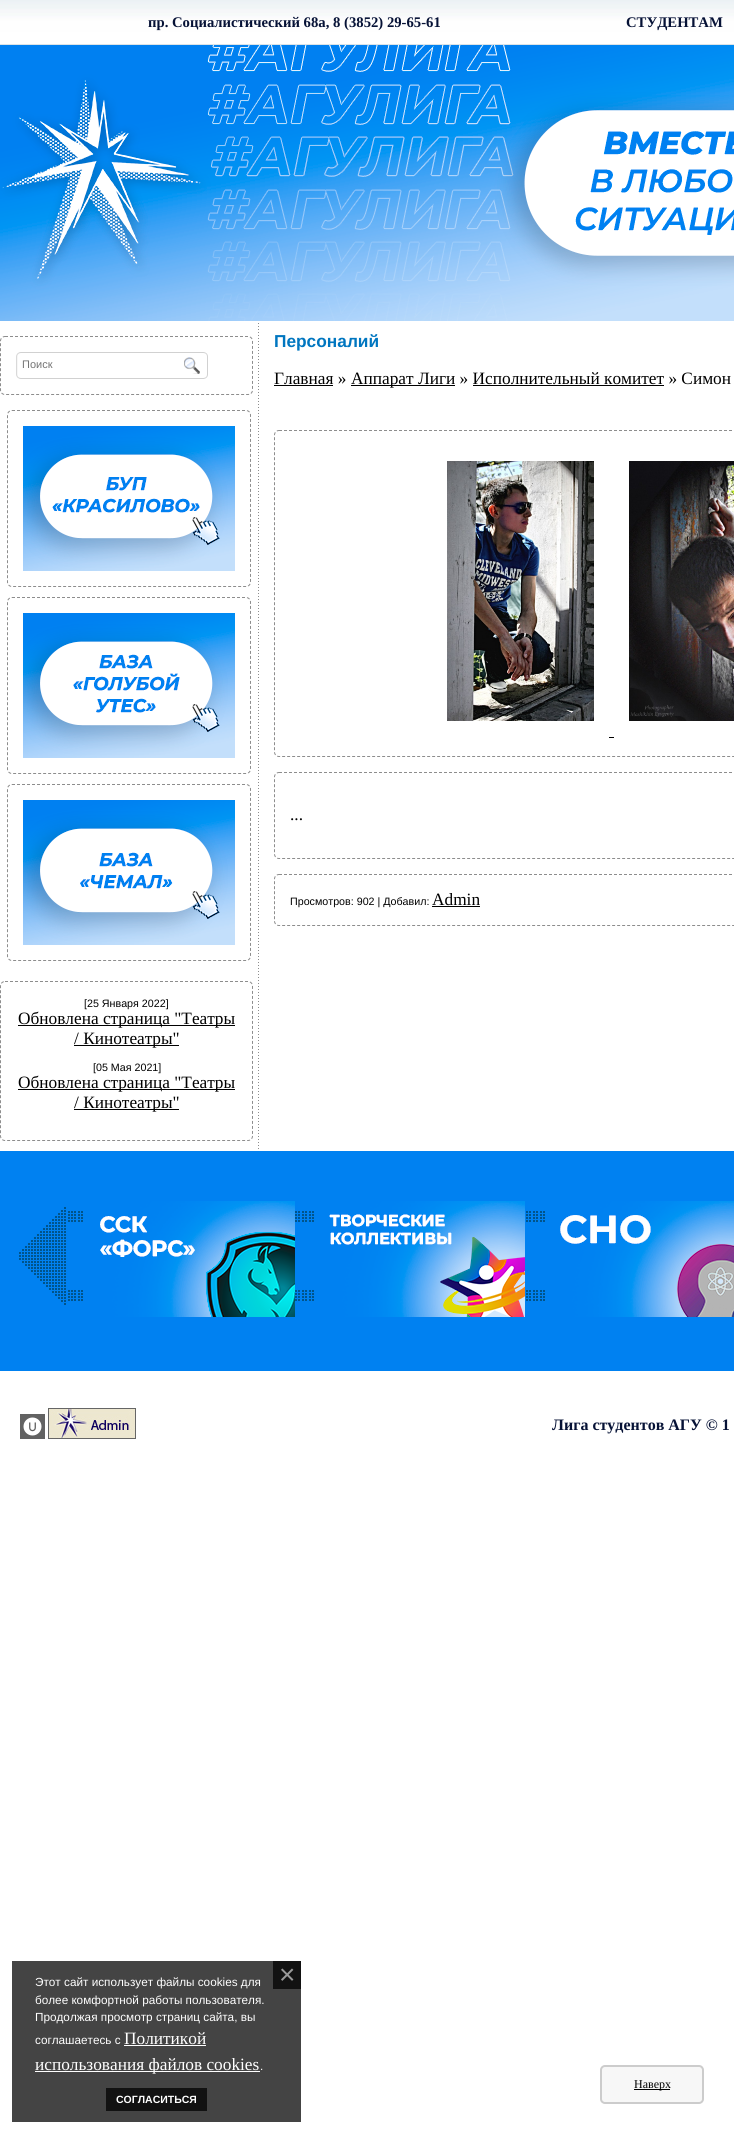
#include <cairo.h>
#include <math.h>
#include <stddef.h>

typedef struct { double x, y; const char *s; } line_t;

static void ink(cairo_t *ctx, unsigned color) {
    cairo_set_source_rgb(ctx, (color >> 16) / 255.0, (color >> 8 & 255) / 255.0, (color & 255) / 255.0);
}

static void round_path(cairo_t *ctx, double x, double y, double w, double h, double r) {
    cairo_new_sub_path(ctx);
    cairo_arc(ctx, x + w - r, y + h - r, r, 0, M_PI / 2);
    cairo_arc(ctx, x + r, y + h - r, r, M_PI / 2, M_PI);
    cairo_arc(ctx, x + r, y + r, r, M_PI, 1.5 * M_PI);
    cairo_arc(ctx, x + w - r, y + r, r, 1.5 * M_PI, 2 * M_PI);
    cairo_close_path(ctx);
}

static void paste(cairo_t *ctx, const char *path, double x, double y, double w, double h) {
    cairo_surface_t *image = cairo_image_surface_create_from_png(path);
    cairo_save(ctx);
    cairo_set_source_surface(ctx, image, x, y);
    cairo_rectangle(ctx, x, y, w, h);
    cairo_fill(ctx);
    cairo_restore(ctx);
    cairo_surface_destroy(image);
}

int main(void) {
    cairo_surface_t *surface = cairo_image_surface_create(CAIRO_FORMAT_RGB24, 734, 2134);
    cairo_t *ctx = cairo_create(surface);
    cairo_font_options_t *options = cairo_font_options_create();
    cairo_font_options_set_hint_metrics(options, CAIRO_HINT_METRICS_OFF);
    cairo_font_options_set_hint_style(options, CAIRO_HINT_STYLE_NONE);
    cairo_set_font_options(ctx, options);
    cairo_set_miter_limit(ctx, 4);
    ink(ctx, 0xFFFFFF);
    cairo_paint(ctx);
    paste(ctx, "media/1.png", 0, 0, 734, 45);
    cairo_select_font_face(ctx, "Liberation Serif", CAIRO_FONT_SLANT_NORMAL, CAIRO_FONT_WEIGHT_BOLD);
    cairo_set_font_size(ctx, 14.7);
    ink(ctx, 0x061236);
    cairo_move_to(ctx, 148, 27);
    cairo_show_text(ctx, "пр. Социалистический 68а, 8 (3852) 29-65-61");
    cairo_move_to(ctx, 626, 27);
    cairo_show_text(ctx, "СТУДЕНТАМ");
    paste(ctx, "media/2.png", 0, 45, 734, 276);
    cairo_new_path(ctx);
    cairo_move_to(ctx, 5, 336.5);
    cairo_line_to(ctx, 248, 336.5);
    cairo_curve_to(ctx, 250.5, 336.5, 252.5, 338.5, 252.5, 341);
    cairo_line_to(ctx, 252.5, 390);
    cairo_curve_to(ctx, 252.5, 392.5, 250.5, 394.5, 248, 394.5);
    cairo_line_to(ctx, 5, 394.5);
    cairo_curve_to(ctx, 2.5, 394.5, 0.5, 392.5, 0.5, 390);
    cairo_line_to(ctx, 0.5, 341);
    cairo_curve_to(ctx, 0.5, 338.5, 2.5, 336.5, 5, 336.5);
    cairo_close_path(ctx);
    ink(ctx, 0x8D8D8D);
    cairo_set_line_width(ctx, 1);
    cairo_set_dash(ctx, (double[]){3, 2}, 2, 0);
    cairo_stroke(ctx);
    paste(ctx, "media/3.png", 16, 352, 192, 27);
    cairo_select_font_face(ctx, "Liberation Sans", CAIRO_FONT_SLANT_NORMAL, CAIRO_FONT_WEIGHT_NORMAL);
    cairo_set_font_size(ctx, 11);
    ink(ctx, 0x757575);
    cairo_move_to(ctx, 22, 368);
    cairo_show_text(ctx, "Поиск");
    cairo_new_path(ctx);
    cairo_move_to(ctx, 12, 410.5);
    cairo_line_to(ctx, 246, 410.5);
    cairo_curve_to(ctx, 248.5, 410.5, 250.5, 412.5, 250.5, 415);
    cairo_line_to(ctx, 250.5, 582);
    cairo_curve_to(ctx, 250.5, 584.5, 248.5, 586.5, 246, 586.5);
    cairo_line_to(ctx, 12, 586.5);
    cairo_curve_to(ctx, 9.5, 586.5, 7.5, 584.5, 7.5, 582);
    cairo_line_to(ctx, 7.5, 415);
    cairo_curve_to(ctx, 7.5, 412.5, 9.5, 410.5, 12, 410.5);
    cairo_close_path(ctx);
    ink(ctx, 0x8D8D8D);
    cairo_stroke(ctx);
    paste(ctx, "media/4.png", 23, 426, 212, 145);
    cairo_new_path(ctx);
    cairo_move_to(ctx, 12, 597.5);
    cairo_line_to(ctx, 246, 597.5);
    cairo_curve_to(ctx, 248.5, 597.5, 250.5, 599.5, 250.5, 602);
    cairo_line_to(ctx, 250.5, 769);
    cairo_curve_to(ctx, 250.5, 771.5, 248.5, 773.5, 246, 773.5);
    cairo_line_to(ctx, 12, 773.5);
    cairo_curve_to(ctx, 9.5, 773.5, 7.5, 771.5, 7.5, 769);
    cairo_line_to(ctx, 7.5, 602);
    cairo_curve_to(ctx, 7.5, 599.5, 9.5, 597.5, 12, 597.5);
    cairo_close_path(ctx);
    cairo_stroke(ctx);
    paste(ctx, "media/5.png", 23, 613, 212, 145);
    cairo_new_path(ctx);
    cairo_move_to(ctx, 12, 784.5);
    cairo_line_to(ctx, 246, 784.5);
    cairo_curve_to(ctx, 248.5, 784.5, 250.5, 786.5, 250.5, 789);
    cairo_line_to(ctx, 250.5, 956);
    cairo_curve_to(ctx, 250.5, 958.5, 248.5, 960.5, 246, 960.5);
    cairo_line_to(ctx, 12, 960.5);
    cairo_curve_to(ctx, 9.5, 960.5, 7.5, 958.5, 7.5, 956);
    cairo_line_to(ctx, 7.5, 789);
    cairo_curve_to(ctx, 7.5, 786.5, 9.5, 784.5, 12, 784.5);
    cairo_close_path(ctx);
    cairo_stroke(ctx);
    paste(ctx, "media/6.png", 23, 800, 212, 145);
    cairo_new_path(ctx);
    cairo_move_to(ctx, 5, 981.5);
    cairo_line_to(ctx, 248, 981.5);
    cairo_curve_to(ctx, 250.5, 981.5, 252.5, 983.5, 252.5, 986);
    cairo_line_to(ctx, 252.5, 1136);
    cairo_curve_to(ctx, 252.5, 1138.5, 250.5, 1140.5, 248, 1140.5);
    cairo_line_to(ctx, 5, 1140.5);
    cairo_curve_to(ctx, 2.5, 1140.5, 0.5, 1138.5, 0.5, 1136);
    cairo_line_to(ctx, 0.5, 986);
    cairo_curve_to(ctx, 0.5, 983.5, 2.5, 981.5, 5, 981.5);
    cairo_close_path(ctx);
    cairo_stroke(ctx);
    cairo_set_font_size(ctx, 10.7);
    ink(ctx, 0x000000);
    cairo_move_to(ctx, 84, 1007);
    cairo_show_text(ctx, "[25 Января 2022]");
    cairo_rectangle(ctx, 18, 1025, 217, 1);
    cairo_fill(ctx);
    cairo_select_font_face(ctx, "Liberation Serif", CAIRO_FONT_SLANT_NORMAL, CAIRO_FONT_WEIGHT_NORMAL);
    cairo_set_font_size(ctx, 17.3);
    cairo_move_to(ctx, 18, 1024);
    cairo_show_text(ctx, "Обновлена страница \"Театры");
    cairo_rectangle(ctx, 74, 1045, 105, 1);
    cairo_fill(ctx);
    cairo_move_to(ctx, 74, 1044);
    cairo_show_text(ctx, "/ Кинотеатры\"");
    cairo_select_font_face(ctx, "Liberation Sans", CAIRO_FONT_SLANT_NORMAL, CAIRO_FONT_WEIGHT_NORMAL);
    cairo_set_font_size(ctx, 10.7);
    cairo_move_to(ctx, 93, 1071);
    cairo_show_text(ctx, "[05 Мая 2021]");
    cairo_rectangle(ctx, 18, 1089, 217, 1);
    cairo_fill(ctx);
    cairo_select_font_face(ctx, "Liberation Serif", CAIRO_FONT_SLANT_NORMAL, CAIRO_FONT_WEIGHT_NORMAL);
    cairo_set_font_size(ctx, 17.3);
    cairo_move_to(ctx, 18, 1088);
    cairo_show_text(ctx, "Обновлена страница \"Театры");
    cairo_rectangle(ctx, 74, 1109, 105, 1);
    cairo_fill(ctx);
    cairo_move_to(ctx, 74, 1108);
    cairo_show_text(ctx, "/ Кинотеатры\"");
    paste(ctx, "media/7.png", 258, 323, 1, 826);
    cairo_select_font_face(ctx, "Liberation Sans", CAIRO_FONT_SLANT_NORMAL, CAIRO_FONT_WEIGHT_BOLD);
    ink(ctx, 0x0076C0);
    cairo_move_to(ctx, 274, 347);
    cairo_show_text(ctx, "Персоналий");
    cairo_select_font_face(ctx, "Liberation Serif", CAIRO_FONT_SLANT_NORMAL, CAIRO_FONT_WEIGHT_NORMAL);
    ink(ctx, 0x000000);
    cairo_move_to(ctx, 274, 384);
    cairo_show_text(ctx, "Главная »");
    cairo_rectangle(ctx, 274, 385, 59, 1);
    cairo_fill(ctx);
    cairo_rectangle(ctx, 351, 385, 104, 1);
    cairo_fill(ctx);
    cairo_move_to(ctx, 351, 384);
    cairo_show_text(ctx, "Аппарат Лиги » Исполнительный комитет » Симон");
    cairo_rectangle(ctx, 473, 385, 191, 1);
    cairo_fill(ctx);
    cairo_new_path(ctx);
    cairo_move_to(ctx, 279, 430.5);
    cairo_line_to(ctx, 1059, 430.5);
    cairo_curve_to(ctx, 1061.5, 430.5, 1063.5, 432.5, 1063.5, 435);
    cairo_line_to(ctx, 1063.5, 752);
    cairo_curve_to(ctx, 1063.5, 754.5, 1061.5, 756.5, 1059, 756.5);
    cairo_line_to(ctx, 279, 756.5);
    cairo_curve_to(ctx, 276.5, 756.5, 274.5, 754.5, 274.5, 752);
    cairo_line_to(ctx, 274.5, 435);
    cairo_curve_to(ctx, 274.5, 432.5, 276.5, 430.5, 279, 430.5);
    cairo_close_path(ctx);
    ink(ctx, 0x8D8D8D);
    cairo_stroke(ctx);
    paste(ctx, "media/8.png", 447, 461, 147, 260);
    paste(ctx, "media/9.png", 629, 461, 105, 260);
    ink(ctx, 0x000000);
    cairo_rectangle(ctx, 609, 737, 5, 1);
    cairo_fill(ctx);
    cairo_new_path(ctx);
    cairo_move_to(ctx, 279, 772.5);
    cairo_line_to(ctx, 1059, 772.5);
    cairo_curve_to(ctx, 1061.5, 772.5, 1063.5, 774.5, 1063.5, 777);
    cairo_line_to(ctx, 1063.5, 854);
    cairo_curve_to(ctx, 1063.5, 856.5, 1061.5, 858.5, 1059, 858.5);
    cairo_line_to(ctx, 279, 858.5);
    cairo_curve_to(ctx, 276.5, 858.5, 274.5, 856.5, 274.5, 854);
    cairo_line_to(ctx, 274.5, 777);
    cairo_curve_to(ctx, 274.5, 774.5, 276.5, 772.5, 279, 772.5);
    cairo_close_path(ctx);
    ink(ctx, 0x8D8D8D);
    cairo_stroke(ctx);
    ink(ctx, 0x000000);
    cairo_move_to(ctx, 290, 820);
    cairo_show_text(ctx, "...");
    cairo_new_path(ctx);
    cairo_move_to(ctx, 279, 874.5);
    cairo_line_to(ctx, 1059, 874.5);
    cairo_curve_to(ctx, 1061.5, 874.5, 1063.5, 876.5, 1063.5, 879);
    cairo_line_to(ctx, 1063.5, 921);
    cairo_curve_to(ctx, 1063.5, 923.5, 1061.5, 925.5, 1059, 925.5);
    cairo_line_to(ctx, 279, 925.5);
    cairo_curve_to(ctx, 276.5, 925.5, 274.5, 923.5, 274.5, 921);
    cairo_line_to(ctx, 274.5, 879);
    cairo_curve_to(ctx, 274.5, 876.5, 276.5, 874.5, 279, 874.5);
    cairo_close_path(ctx);
    ink(ctx, 0x8D8D8D);
    cairo_stroke(ctx);
    cairo_select_font_face(ctx, "Liberation Sans", CAIRO_FONT_SLANT_NORMAL, CAIRO_FONT_WEIGHT_NORMAL);
    cairo_set_font_size(ctx, 10.7);
    ink(ctx, 0x000000);
    cairo_move_to(ctx, 290, 905);
    cairo_show_text(ctx, "Просмотров: 902 | Добавил:");
    cairo_select_font_face(ctx, "Liberation Serif", CAIRO_FONT_SLANT_NORMAL, CAIRO_FONT_WEIGHT_NORMAL);
    cairo_set_font_size(ctx, 17.3);
    cairo_move_to(ctx, 432, 905);
    cairo_show_text(ctx, "Admin");
    cairo_rectangle(ctx, 432, 906, 48, 1);
    cairo_fill(ctx);
    ink(ctx, 0x0081F1);
    cairo_rectangle(ctx, 0, 1151, 734, 220);
    cairo_fill(ctx);
    paste(ctx, "media/10.png", 71, 1211, 474, 90);
    paste(ctx, "media/11.png", 19, 1207, 51, 98);
    paste(ctx, "media/12.png", 85, 1201, 210, 116);
    paste(ctx, "media/13.png", 316, 1201, 209, 116);
    paste(ctx, "media/14.png", 547, 1201, 187, 116);
    paste(ctx, "media/15.png", 20, 1414, 25, 25);
    paste(ctx, "media/16.png", 48, 1408, 88, 31);
    cairo_select_font_face(ctx, "Liberation Serif", CAIRO_FONT_SLANT_NORMAL, CAIRO_FONT_WEIGHT_BOLD);
    cairo_set_font_size(ctx, 16);
    ink(ctx, 0x061236);
    cairo_move_to(ctx, 552, 1430);
    cairo_show_text(ctx, "Лига студентов АГУ © 1");
    ink(ctx, 0xF7F7F7);
    round_path(ctx, 601, 2066, 102, 37, 4);
    cairo_fill_preserve(ctx);
    ink(ctx, 0xCCCCCC);
    cairo_set_line_width(ctx, 2);
    cairo_set_dash(ctx, NULL, 0, 0);
    cairo_stroke(ctx);
    ink(ctx, 0x000000);
    cairo_rectangle(ctx, 634, 2089, 36, 1);
    cairo_fill(ctx);
    cairo_select_font_face(ctx, "Liberation Serif", CAIRO_FONT_SLANT_NORMAL, CAIRO_FONT_WEIGHT_NORMAL);
    cairo_set_font_size(ctx, 12);
    cairo_move_to(ctx, 634, 2088);
    cairo_show_text(ctx, "Наверх");
    ink(ctx, 0x444444);
    cairo_rectangle(ctx, 12, 1961, 289, 161);
    cairo_fill(ctx);
    ink(ctx, 0x121212);
    cairo_rectangle(ctx, 273, 1961, 28, 28);
    cairo_fill(ctx);
    cairo_select_font_face(ctx, "Liberation Sans", CAIRO_FONT_SLANT_NORMAL, CAIRO_FONT_WEIGHT_NORMAL);
    cairo_set_font_size(ctx, 28);
    ink(ctx, 0x999999);
    cairo_move_to(ctx, 279, 1984);
    cairo_show_text(ctx, "×");
    ink(ctx, 0x121212);
    cairo_rectangle(ctx, 106, 2088, 101, 23);
    cairo_fill(ctx);
    cairo_select_font_face(ctx, "Liberation Sans", CAIRO_FONT_SLANT_NORMAL, CAIRO_FONT_WEIGHT_BOLD);
    cairo_set_font_size(ctx, 10.5);
    ink(ctx, 0xFFFFFF);
    cairo_move_to(ctx, 116, 2103);
    cairo_show_text(ctx, "СОГЛАСИТЬСЯ");
    cairo_select_font_face(ctx, "Liberation Sans", CAIRO_FONT_SLANT_NORMAL, CAIRO_FONT_WEIGHT_NORMAL);
    cairo_set_font_size(ctx, 11.75);
    {
        static const line_t items[] = {
            {35, 1986, "Этот сайт использует файлы cookies для"},
            {35, 2004, "более комфортной работы пользователя."},
            {35, 2021, "Продолжая просмотр страниц сайта, вы"},
            {35, 2044, "соглашаетесь с"},
        };
        for (size_t i = 0; i < sizeof items / sizeof *items; i++) {
            cairo_move_to(ctx, items[i].x, items[i].y);
            cairo_show_text(ctx, items[i].s);
        }
    }
    cairo_select_font_face(ctx, "Liberation Serif", CAIRO_FONT_SLANT_NORMAL, CAIRO_FONT_WEIGHT_NORMAL);
    cairo_set_font_size(ctx, 17.3);
    cairo_move_to(ctx, 124, 2044);
    cairo_show_text(ctx, "Политикой");
    cairo_rectangle(ctx, 124, 2045, 82, 1);
    cairo_fill(ctx);
    cairo_rectangle(ctx, 35, 2071, 225, 1);
    cairo_fill(ctx);
    cairo_move_to(ctx, 35, 2070);
    cairo_show_text(ctx, "использования файлов cookies");
    cairo_select_font_face(ctx, "Liberation Sans", CAIRO_FONT_SLANT_NORMAL, CAIRO_FONT_WEIGHT_NORMAL);
    cairo_set_font_size(ctx, 11.75);
    cairo_move_to(ctx, 260, 2070);
    cairo_show_text(ctx, ".");
    cairo_surface_write_to_png(surface, "image.png");
    cairo_font_options_destroy(options);
    cairo_destroy(ctx);
    cairo_surface_destroy(surface);
    return 0;
}
